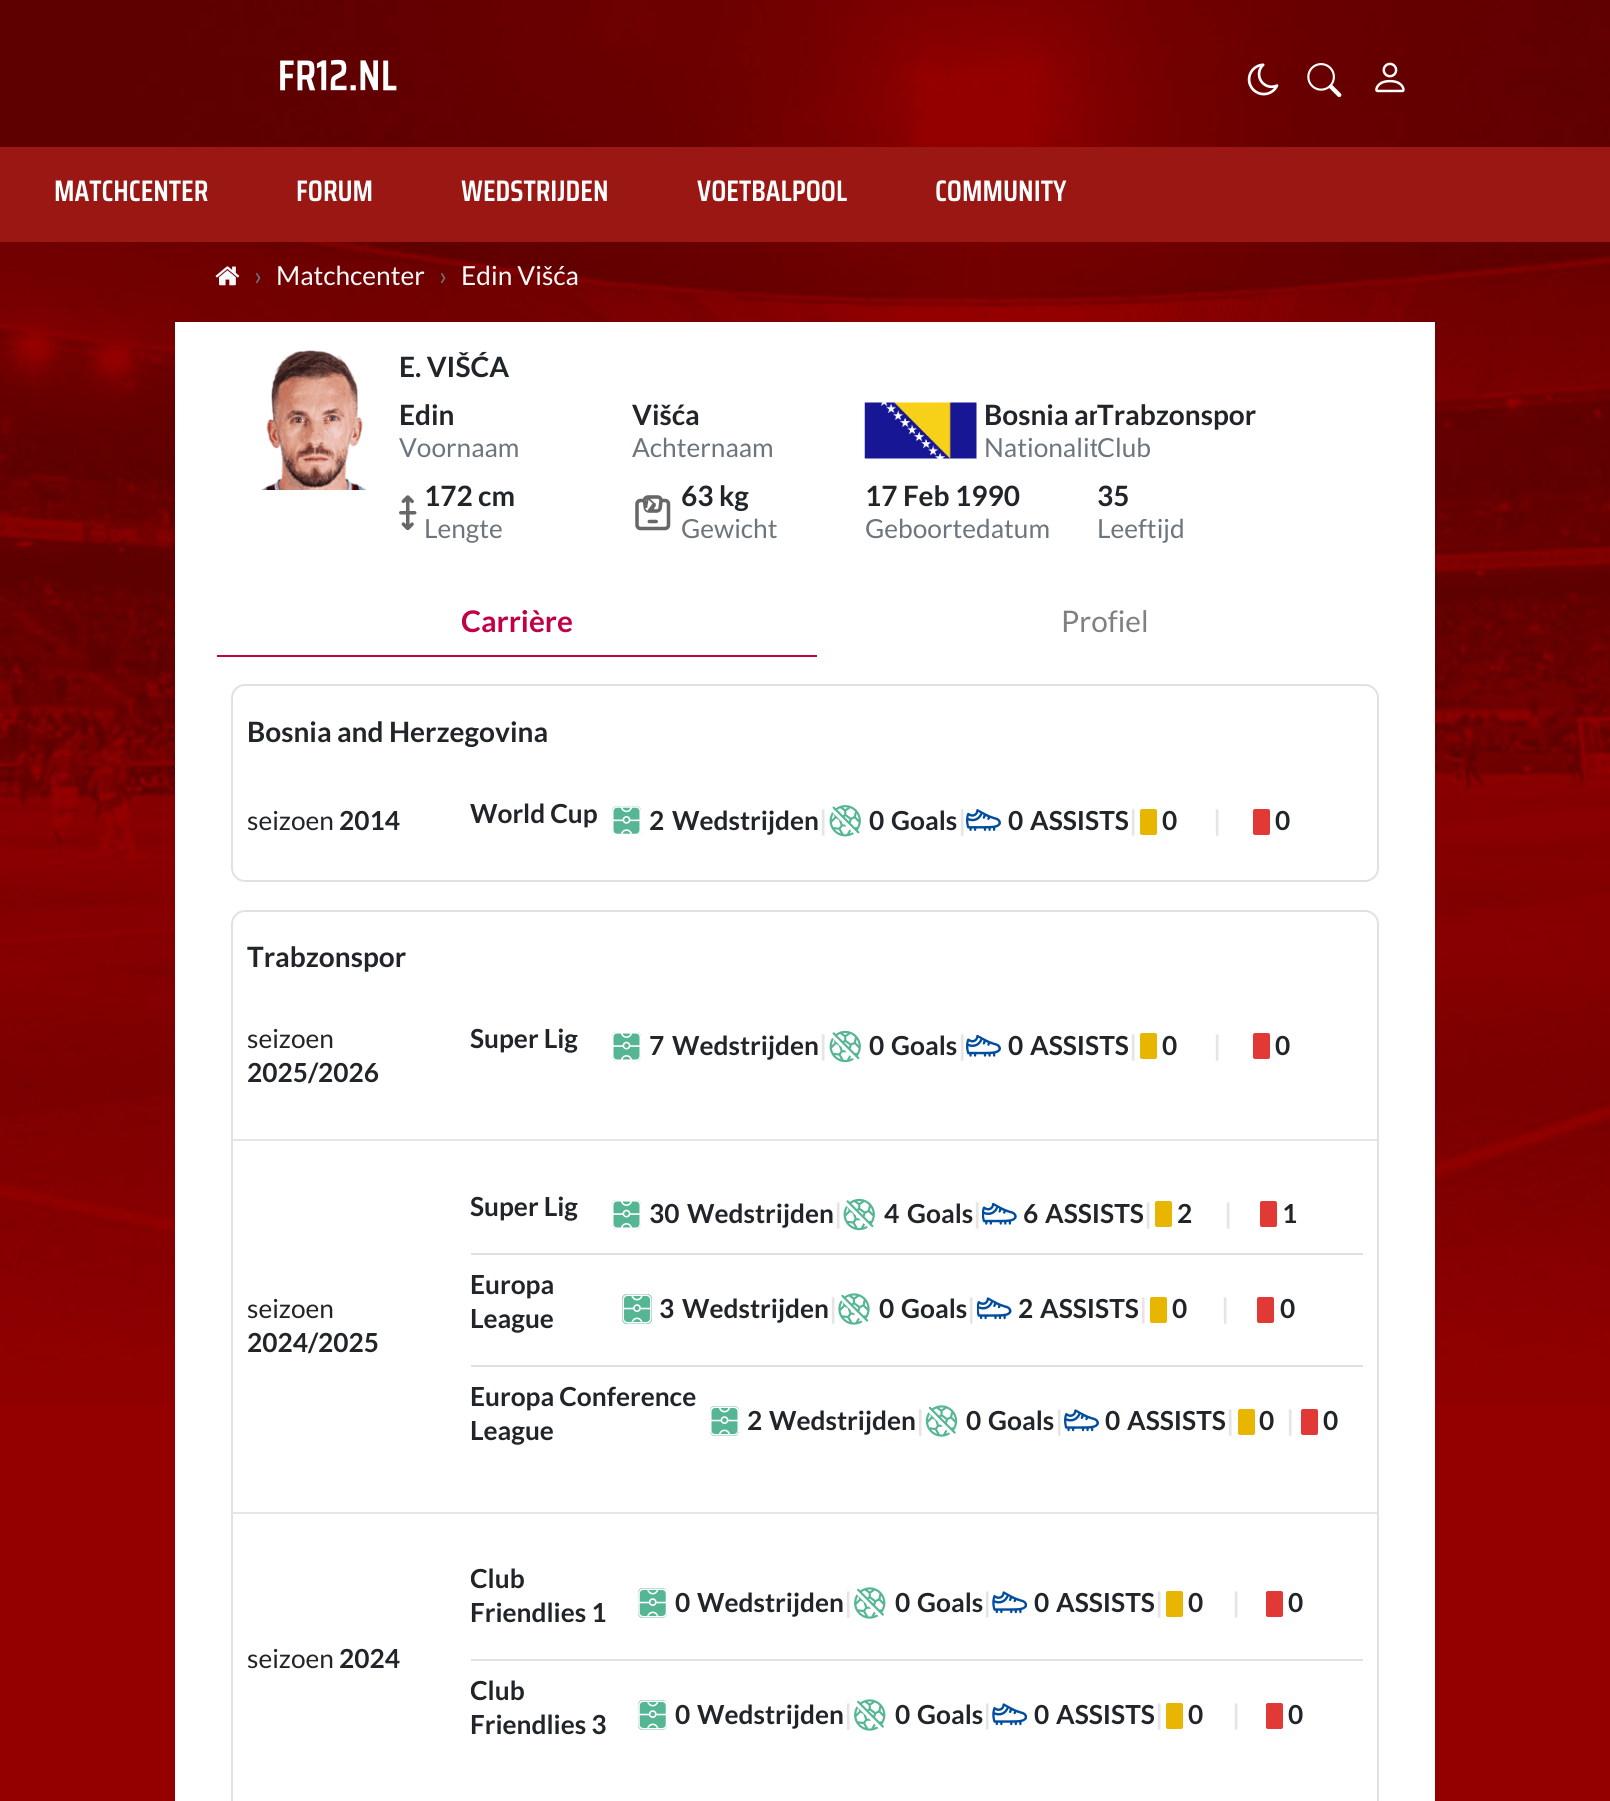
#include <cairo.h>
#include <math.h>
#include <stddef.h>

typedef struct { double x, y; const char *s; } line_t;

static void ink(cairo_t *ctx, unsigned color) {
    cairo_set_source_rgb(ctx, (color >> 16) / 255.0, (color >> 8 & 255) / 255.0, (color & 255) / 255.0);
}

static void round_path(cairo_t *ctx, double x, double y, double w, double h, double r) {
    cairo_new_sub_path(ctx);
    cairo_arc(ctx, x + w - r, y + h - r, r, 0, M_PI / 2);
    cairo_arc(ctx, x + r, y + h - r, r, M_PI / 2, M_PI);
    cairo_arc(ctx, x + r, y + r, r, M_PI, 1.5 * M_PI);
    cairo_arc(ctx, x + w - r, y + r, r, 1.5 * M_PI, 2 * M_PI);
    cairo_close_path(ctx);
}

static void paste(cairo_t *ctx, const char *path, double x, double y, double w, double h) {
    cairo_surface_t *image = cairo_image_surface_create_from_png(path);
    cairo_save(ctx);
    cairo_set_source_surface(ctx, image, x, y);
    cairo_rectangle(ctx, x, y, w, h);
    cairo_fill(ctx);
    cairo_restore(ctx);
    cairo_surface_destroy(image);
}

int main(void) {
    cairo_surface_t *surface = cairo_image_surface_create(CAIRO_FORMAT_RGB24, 1610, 1801);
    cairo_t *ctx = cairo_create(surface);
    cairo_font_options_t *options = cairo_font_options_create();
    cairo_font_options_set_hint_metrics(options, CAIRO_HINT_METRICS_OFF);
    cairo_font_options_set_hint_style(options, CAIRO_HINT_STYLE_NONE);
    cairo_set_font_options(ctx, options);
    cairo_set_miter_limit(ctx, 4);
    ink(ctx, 0x940000);
    cairo_paint(ctx);
    paste(ctx, "media/1.png", 0, 0, 1610, 1404);
    paste(ctx, "media/2.png", 280, 59, 117, 32);
    paste(ctx, "media/3.png", 1247, 63, 32, 33);
    paste(ctx, "media/4.png", 1307, 63, 35, 35);
    paste(ctx, "media/5.png", 1375, 62, 30, 31);
    ink(ctx, 0x9A1713);
    cairo_rectangle(ctx, 0, 147, 1610, 95);
    cairo_fill(ctx);
    cairo_select_font_face(ctx, "Saira Condensed SemiBold", CAIRO_FONT_SLANT_NORMAL, CAIRO_FONT_WEIGHT_NORMAL);
    cairo_set_font_size(ctx, 29.75);
    ink(ctx, 0xFFFFFF);
    {
        static const line_t items[] = {
            {54, 201, "MATCHCENTER"},
            {296, 201, "FORUM"},
            {461, 201, "WEDSTRIJDEN"},
            {697, 201, "VOETBALPOOL"},
            {935, 201, "COMMUNITY"},
        };
        for (size_t i = 0; i < sizeof items / sizeof *items; i++) {
            cairo_move_to(ctx, items[i].x, items[i].y);
            cairo_show_text(ctx, items[i].s);
        }
    }
    paste(ctx, "media/6.png", 215, 266, 25, 20);
    cairo_select_font_face(ctx, "Lato", CAIRO_FONT_SLANT_NORMAL, CAIRO_FONT_WEIGHT_NORMAL);
    cairo_set_font_size(ctx, 26.25);
    ink(ctx, 0x6C757D);
    cairo_move_to(ctx, 254, 285);
    cairo_show_text(ctx, "›");
    ink(ctx, 0xF8F9FA);
    cairo_move_to(ctx, 276, 285);
    cairo_show_text(ctx, "Matchcenter");
    ink(ctx, 0x6C757D);
    cairo_move_to(ctx, 439, 285);
    cairo_show_text(ctx, "›");
    ink(ctx, 0xF8F9FA);
    cairo_move_to(ctx, 461, 285);
    cairo_show_text(ctx, "Edin Višća");
    ink(ctx, 0xFFFFFF);
    cairo_rectangle(ctx, 175, 322, 1260, 1479);
    cairo_fill(ctx);
    paste(ctx, "media/7.png", 261, 350, 106, 140);
    cairo_select_font_face(ctx, "Lato", CAIRO_FONT_SLANT_NORMAL, CAIRO_FONT_WEIGHT_BOLD);
    cairo_set_font_size(ctx, 28);
    ink(ctx, 0x212529);
    cairo_move_to(ctx, 399, 377);
    cairo_show_text(ctx, "E. VIŠĆA");
    cairo_move_to(ctx, 399, 425);
    cairo_show_text(ctx, "Edin");
    cairo_select_font_face(ctx, "Lato", CAIRO_FONT_SLANT_NORMAL, CAIRO_FONT_WEIGHT_NORMAL);
    cairo_set_font_size(ctx, 26.25);
    ink(ctx, 0x6C757D);
    cairo_move_to(ctx, 399, 457);
    cairo_show_text(ctx, "Voornaam");
    cairo_select_font_face(ctx, "Lato", CAIRO_FONT_SLANT_NORMAL, CAIRO_FONT_WEIGHT_BOLD);
    cairo_set_font_size(ctx, 28);
    ink(ctx, 0x212529);
    cairo_move_to(ctx, 632, 425);
    cairo_show_text(ctx, "Višća");
    cairo_select_font_face(ctx, "Lato", CAIRO_FONT_SLANT_NORMAL, CAIRO_FONT_WEIGHT_NORMAL);
    cairo_set_font_size(ctx, 26.25);
    ink(ctx, 0x6C757D);
    cairo_move_to(ctx, 632, 457);
    cairo_show_text(ctx, "Achternaam");
    paste(ctx, "media/8.png", 864, 402, 113, 57);
    cairo_save(ctx);
    cairo_rectangle(ctx, 984, 397, 113, 34);
    cairo_clip(ctx);
    cairo_select_font_face(ctx, "Lato", CAIRO_FONT_SLANT_NORMAL, CAIRO_FONT_WEIGHT_BOLD);
    cairo_set_font_size(ctx, 28);
    ink(ctx, 0x212529);
    cairo_move_to(ctx, 984, 425);
    cairo_show_text(ctx, "Bosnia an");
    cairo_restore(ctx);
    cairo_save(ctx);
    cairo_rectangle(ctx, 865, 397, 232, 67);
    cairo_clip(ctx);
    cairo_move_to(ctx, 984, 457);
    cairo_show_text(ctx, "Nationalit");
    cairo_restore(ctx);
    cairo_select_font_face(ctx, "Lato", CAIRO_FONT_SLANT_NORMAL, CAIRO_FONT_WEIGHT_BOLD);
    cairo_set_font_size(ctx, 28);
    ink(ctx, 0x212529);
    cairo_move_to(ctx, 1097, 425);
    cairo_show_text(ctx, "Trabzonspor");
    cairo_select_font_face(ctx, "Lato", CAIRO_FONT_SLANT_NORMAL, CAIRO_FONT_WEIGHT_NORMAL);
    cairo_set_font_size(ctx, 26.25);
    ink(ctx, 0x6C757D);
    cairo_move_to(ctx, 1097, 457);
    cairo_show_text(ctx, "Club");
    paste(ctx, "media/9.png", 399, 495, 18, 35);
    cairo_select_font_face(ctx, "Lato", CAIRO_FONT_SLANT_NORMAL, CAIRO_FONT_WEIGHT_BOLD);
    cairo_set_font_size(ctx, 28);
    ink(ctx, 0x212529);
    cairo_move_to(ctx, 424, 506);
    cairo_show_text(ctx, "172 cm");
    cairo_select_font_face(ctx, "Lato", CAIRO_FONT_SLANT_NORMAL, CAIRO_FONT_WEIGHT_NORMAL);
    cairo_set_font_size(ctx, 26.25);
    ink(ctx, 0x6C757D);
    cairo_move_to(ctx, 424, 538);
    cairo_show_text(ctx, "Lengte");
    paste(ctx, "media/10.png", 635, 495, 36, 36);
    cairo_select_font_face(ctx, "Lato", CAIRO_FONT_SLANT_NORMAL, CAIRO_FONT_WEIGHT_BOLD);
    cairo_set_font_size(ctx, 28);
    ink(ctx, 0x212529);
    cairo_move_to(ctx, 681, 506);
    cairo_show_text(ctx, "63 kg");
    cairo_select_font_face(ctx, "Lato", CAIRO_FONT_SLANT_NORMAL, CAIRO_FONT_WEIGHT_NORMAL);
    cairo_set_font_size(ctx, 26.25);
    ink(ctx, 0x6C757D);
    cairo_move_to(ctx, 681, 538);
    cairo_show_text(ctx, "Gewicht");
    cairo_select_font_face(ctx, "Lato", CAIRO_FONT_SLANT_NORMAL, CAIRO_FONT_WEIGHT_BOLD);
    cairo_set_font_size(ctx, 28);
    ink(ctx, 0x212529);
    cairo_move_to(ctx, 865, 506);
    cairo_show_text(ctx, "17 Feb 1990");
    cairo_select_font_face(ctx, "Lato", CAIRO_FONT_SLANT_NORMAL, CAIRO_FONT_WEIGHT_NORMAL);
    cairo_set_font_size(ctx, 26.25);
    ink(ctx, 0x6C757D);
    cairo_move_to(ctx, 865, 538);
    cairo_show_text(ctx, "Geboortedatum");
    cairo_select_font_face(ctx, "Lato", CAIRO_FONT_SLANT_NORMAL, CAIRO_FONT_WEIGHT_BOLD);
    cairo_set_font_size(ctx, 28);
    ink(ctx, 0x212529);
    cairo_move_to(ctx, 1097, 506);
    cairo_show_text(ctx, "35");
    cairo_select_font_face(ctx, "Lato", CAIRO_FONT_SLANT_NORMAL, CAIRO_FONT_WEIGHT_NORMAL);
    cairo_set_font_size(ctx, 26.25);
    ink(ctx, 0x6C757D);
    cairo_move_to(ctx, 1097, 538);
    cairo_show_text(ctx, "Leeftijd");
    ink(ctx, 0xC20046);
    cairo_rectangle(ctx, 217, 655, 600, 2);
    cairo_fill(ctx);
    cairo_select_font_face(ctx, "Lato", CAIRO_FONT_SLANT_NORMAL, CAIRO_FONT_WEIGHT_BOLD);
    cairo_set_font_size(ctx, 29.75);
    cairo_move_to(ctx, 461, 632);
    cairo_show_text(ctx, "Carrière");
    cairo_select_font_face(ctx, "Lato", CAIRO_FONT_SLANT_NORMAL, CAIRO_FONT_WEIGHT_NORMAL);
    ink(ctx, 0x808080);
    cairo_move_to(ctx, 1061, 632);
    cairo_show_text(ctx, "Profiel");
    round_path(ctx, 232, 685, 1146, 196, 13);
    ink(ctx, 0xDEE2E6);
    cairo_stroke(ctx);
    cairo_select_font_face(ctx, "Lato", CAIRO_FONT_SLANT_NORMAL, CAIRO_FONT_WEIGHT_BOLD);
    cairo_set_font_size(ctx, 28);
    ink(ctx, 0x212529);
    cairo_move_to(ctx, 247, 742);
    cairo_show_text(ctx, "Bosnia and Herzegovina");
    cairo_select_font_face(ctx, "Lato", CAIRO_FONT_SLANT_NORMAL, CAIRO_FONT_WEIGHT_NORMAL);
    cairo_set_font_size(ctx, 26.25);
    cairo_move_to(ctx, 247, 830);
    cairo_show_text(ctx, "seizoen");
    cairo_select_font_face(ctx, "Lato", CAIRO_FONT_SLANT_NORMAL, CAIRO_FONT_WEIGHT_BOLD);
    cairo_move_to(ctx, 339, 830);
    cairo_show_text(ctx, "2014");
    cairo_move_to(ctx, 470, 823);
    cairo_show_text(ctx, "World Cup");
    paste(ctx, "media/11.png", 612, 806, 29, 29);
    cairo_move_to(ctx, 649, 830);
    cairo_show_text(ctx, "2");
    cairo_move_to(ctx, 672, 830);
    cairo_show_text(ctx, "Wedstrijden");
    cairo_set_font_size(ctx, 28);
    ink(ctx, 0xE5E5E5);
    cairo_move_to(ctx, 819, 831);
    cairo_show_text(ctx, "|");
    paste(ctx, "media/12.png", 829, 805, 32, 32);
    cairo_set_font_size(ctx, 26.25);
    ink(ctx, 0x212529);
    cairo_move_to(ctx, 869, 830);
    cairo_show_text(ctx, "0");
    cairo_move_to(ctx, 891, 830);
    cairo_show_text(ctx, "Goals");
    cairo_set_font_size(ctx, 28);
    ink(ctx, 0xE5E5E5);
    cairo_move_to(ctx, 958, 831);
    cairo_show_text(ctx, "|");
    paste(ctx, "media/13.png", 966, 809, 35, 22);
    cairo_set_font_size(ctx, 26.25);
    ink(ctx, 0x212529);
    cairo_move_to(ctx, 1008, 830);
    cairo_show_text(ctx, "0");
    cairo_move_to(ctx, 1030, 830);
    cairo_show_text(ctx, "ASSISTS");
    cairo_set_font_size(ctx, 28);
    ink(ctx, 0xE5E5E5);
    cairo_move_to(ctx, 1129, 831);
    cairo_show_text(ctx, "|");
    ink(ctx, 0xE8B500);
    round_path(ctx, 1139, 808, 19, 28, 3);
    cairo_fill_preserve(ctx);
    ink(ctx, 0xFFFFFF);
    cairo_stroke(ctx);
    cairo_set_font_size(ctx, 26.25);
    ink(ctx, 0x212529);
    cairo_move_to(ctx, 1162, 830);
    cairo_show_text(ctx, "0");
    cairo_set_font_size(ctx, 28);
    ink(ctx, 0xE5E5E5);
    cairo_move_to(ctx, 1213, 831);
    cairo_show_text(ctx, "|");
    ink(ctx, 0xE13A36);
    round_path(ctx, 1252, 808, 19, 28, 3);
    cairo_fill_preserve(ctx);
    ink(ctx, 0xFFFFFF);
    cairo_stroke(ctx);
    cairo_set_font_size(ctx, 26.25);
    ink(ctx, 0x212529);
    cairo_move_to(ctx, 1275, 830);
    cairo_show_text(ctx, "0");
    round_path(ctx, 232, 911, 1146, 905, 13);
    ink(ctx, 0xDEE2E6);
    cairo_stroke(ctx);
    cairo_set_font_size(ctx, 28);
    ink(ctx, 0x212529);
    cairo_move_to(ctx, 247, 967);
    cairo_show_text(ctx, "Trabzonspor");
    cairo_select_font_face(ctx, "Lato", CAIRO_FONT_SLANT_NORMAL, CAIRO_FONT_WEIGHT_NORMAL);
    cairo_set_font_size(ctx, 26.25);
    cairo_move_to(ctx, 247, 1048);
    cairo_show_text(ctx, "seizoen");
    cairo_select_font_face(ctx, "Lato", CAIRO_FONT_SLANT_NORMAL, CAIRO_FONT_WEIGHT_BOLD);
    cairo_move_to(ctx, 247, 1082);
    cairo_show_text(ctx, "2025/2026");
    cairo_move_to(ctx, 470, 1048);
    cairo_show_text(ctx, "Super Lig");
    paste(ctx, "media/14.png", 612, 1032, 29, 29);
    cairo_move_to(ctx, 649, 1055);
    cairo_show_text(ctx, "7");
    cairo_move_to(ctx, 672, 1055);
    cairo_show_text(ctx, "Wedstrijden");
    cairo_set_font_size(ctx, 28);
    ink(ctx, 0xE5E5E5);
    cairo_move_to(ctx, 819, 1056);
    cairo_show_text(ctx, "|");
    paste(ctx, "media/15.png", 829, 1030, 32, 33);
    cairo_set_font_size(ctx, 26.25);
    ink(ctx, 0x212529);
    cairo_move_to(ctx, 869, 1055);
    cairo_show_text(ctx, "0");
    cairo_move_to(ctx, 891, 1055);
    cairo_show_text(ctx, "Goals");
    cairo_set_font_size(ctx, 28);
    ink(ctx, 0xE5E5E5);
    cairo_move_to(ctx, 958, 1056);
    cairo_show_text(ctx, "|");
    paste(ctx, "media/16.png", 966, 1034, 35, 23);
    cairo_set_font_size(ctx, 26.25);
    ink(ctx, 0x212529);
    cairo_move_to(ctx, 1008, 1055);
    cairo_show_text(ctx, "0");
    cairo_move_to(ctx, 1030, 1055);
    cairo_show_text(ctx, "ASSISTS");
    cairo_set_font_size(ctx, 28);
    ink(ctx, 0xE5E5E5);
    cairo_move_to(ctx, 1129, 1056);
    cairo_show_text(ctx, "|");
    ink(ctx, 0xE8B500);
    round_path(ctx, 1139, 1032, 19, 28, 3);
    cairo_fill_preserve(ctx);
    ink(ctx, 0xFFFFFF);
    cairo_stroke(ctx);
    cairo_set_font_size(ctx, 26.25);
    ink(ctx, 0x212529);
    cairo_move_to(ctx, 1162, 1055);
    cairo_show_text(ctx, "0");
    cairo_set_font_size(ctx, 28);
    ink(ctx, 0xE5E5E5);
    cairo_move_to(ctx, 1213, 1056);
    cairo_show_text(ctx, "|");
    ink(ctx, 0xE13A36);
    round_path(ctx, 1252, 1032, 19, 28, 3);
    cairo_fill_preserve(ctx);
    ink(ctx, 0xFFFFFF);
    cairo_stroke(ctx);
    cairo_set_font_size(ctx, 26.25);
    ink(ctx, 0x212529);
    cairo_move_to(ctx, 1275, 1055);
    cairo_show_text(ctx, "0");
    ink(ctx, 0xE6E6E6);
    cairo_rectangle(ctx, 233, 1139, 1144, 2);
    cairo_fill(ctx);
    cairo_select_font_face(ctx, "Lato", CAIRO_FONT_SLANT_NORMAL, CAIRO_FONT_WEIGHT_NORMAL);
    ink(ctx, 0x212529);
    cairo_move_to(ctx, 247, 1318);
    cairo_show_text(ctx, "seizoen");
    cairo_select_font_face(ctx, "Lato", CAIRO_FONT_SLANT_NORMAL, CAIRO_FONT_WEIGHT_BOLD);
    cairo_move_to(ctx, 247, 1352);
    cairo_show_text(ctx, "2024/2025");
    ink(ctx, 0xDEE2E6);
    cairo_rectangle(ctx, 471, 1253, 892, 2);
    cairo_fill(ctx);
    ink(ctx, 0x212529);
    cairo_move_to(ctx, 470, 1216);
    cairo_show_text(ctx, "Super Lig");
    paste(ctx, "media/14.png", 612, 1200, 29, 29);
    cairo_move_to(ctx, 649, 1223);
    cairo_show_text(ctx, "30");
    cairo_move_to(ctx, 687, 1223);
    cairo_show_text(ctx, "Wedstrijden");
    cairo_set_font_size(ctx, 28);
    ink(ctx, 0xE5E5E5);
    cairo_move_to(ctx, 834, 1224);
    cairo_show_text(ctx, "|");
    paste(ctx, "media/15.png", 843, 1198, 32, 33);
    cairo_set_font_size(ctx, 26.25);
    ink(ctx, 0x212529);
    cairo_move_to(ctx, 884, 1223);
    cairo_show_text(ctx, "4");
    cairo_move_to(ctx, 907, 1223);
    cairo_show_text(ctx, "Goals");
    cairo_set_font_size(ctx, 28);
    ink(ctx, 0xE5E5E5);
    cairo_move_to(ctx, 973, 1224);
    cairo_show_text(ctx, "|");
    paste(ctx, "media/17.png", 982, 1202, 35, 23);
    cairo_set_font_size(ctx, 26.25);
    ink(ctx, 0x212529);
    cairo_move_to(ctx, 1023, 1223);
    cairo_show_text(ctx, "6");
    cairo_move_to(ctx, 1045, 1223);
    cairo_show_text(ctx, "ASSISTS");
    cairo_set_font_size(ctx, 28);
    ink(ctx, 0xE5E5E5);
    cairo_move_to(ctx, 1144, 1224);
    cairo_show_text(ctx, "|");
    ink(ctx, 0xE8B500);
    round_path(ctx, 1154, 1200, 19, 28, 3);
    cairo_fill_preserve(ctx);
    ink(ctx, 0xFFFFFF);
    cairo_stroke(ctx);
    cairo_set_font_size(ctx, 26.25);
    ink(ctx, 0x212529);
    cairo_move_to(ctx, 1177, 1223);
    cairo_show_text(ctx, "2");
    cairo_set_font_size(ctx, 28);
    ink(ctx, 0xE5E5E5);
    cairo_move_to(ctx, 1224, 1224);
    cairo_show_text(ctx, "|");
    ink(ctx, 0xE13A36);
    round_path(ctx, 1259, 1200, 19, 28, 3);
    cairo_fill_preserve(ctx);
    ink(ctx, 0xFFFFFF);
    cairo_stroke(ctx);
    cairo_set_font_size(ctx, 26.25);
    ink(ctx, 0x212529);
    cairo_move_to(ctx, 1282, 1223);
    cairo_show_text(ctx, "1");
    ink(ctx, 0xDEE2E6);
    cairo_rectangle(ctx, 471, 1365, 892, 2);
    cairo_fill(ctx);
    ink(ctx, 0x212529);
    cairo_move_to(ctx, 470, 1294);
    cairo_show_text(ctx, "Europa");
    cairo_move_to(ctx, 470, 1328);
    cairo_show_text(ctx, "League");
    paste(ctx, "media/18.png", 622, 1294, 30, 30);
    cairo_move_to(ctx, 659, 1318);
    cairo_show_text(ctx, "3");
    cairo_move_to(ctx, 682, 1318);
    cairo_show_text(ctx, "Wedstrijden");
    cairo_set_font_size(ctx, 28);
    ink(ctx, 0xE5E5E5);
    cairo_move_to(ctx, 829, 1319);
    cairo_show_text(ctx, "|");
    paste(ctx, "media/19.png", 838, 1293, 32, 32);
    cairo_set_font_size(ctx, 26.25);
    ink(ctx, 0x212529);
    cairo_move_to(ctx, 879, 1318);
    cairo_show_text(ctx, "0");
    cairo_move_to(ctx, 901, 1318);
    cairo_show_text(ctx, "Goals");
    cairo_set_font_size(ctx, 28);
    ink(ctx, 0xE5E5E5);
    cairo_move_to(ctx, 967, 1319);
    cairo_show_text(ctx, "|");
    paste(ctx, "media/20.png", 977, 1297, 35, 23);
    cairo_set_font_size(ctx, 26.25);
    ink(ctx, 0x212529);
    cairo_move_to(ctx, 1018, 1318);
    cairo_show_text(ctx, "2");
    cairo_move_to(ctx, 1040, 1318);
    cairo_show_text(ctx, "ASSISTS");
    cairo_set_font_size(ctx, 28);
    ink(ctx, 0xE5E5E5);
    cairo_move_to(ctx, 1139, 1319);
    cairo_show_text(ctx, "|");
    ink(ctx, 0xE8B500);
    round_path(ctx, 1149, 1296, 19, 28, 3);
    cairo_fill_preserve(ctx);
    ink(ctx, 0xFFFFFF);
    cairo_stroke(ctx);
    cairo_set_font_size(ctx, 26.25);
    ink(ctx, 0x212529);
    cairo_move_to(ctx, 1172, 1318);
    cairo_show_text(ctx, "0");
    cairo_set_font_size(ctx, 28);
    ink(ctx, 0xE5E5E5);
    cairo_move_to(ctx, 1221, 1319);
    cairo_show_text(ctx, "|");
    ink(ctx, 0xE13A36);
    round_path(ctx, 1256, 1296, 19, 28, 3);
    cairo_fill_preserve(ctx);
    ink(ctx, 0xFFFFFF);
    cairo_stroke(ctx);
    cairo_set_font_size(ctx, 26.25);
    ink(ctx, 0x212529);
    {
        static const line_t items[] = {
            {1280, 1318, "0"},
            {470, 1406, "Europa Conference"},
            {470, 1440, "League"},
        };
        for (size_t i = 0; i < sizeof items / sizeof *items; i++) {
            cairo_move_to(ctx, items[i].x, items[i].y);
            cairo_show_text(ctx, items[i].s);
        }
    }
    paste(ctx, "media/21.png", 710, 1406, 29, 30);
    cairo_move_to(ctx, 747, 1430);
    cairo_show_text(ctx, "2");
    cairo_move_to(ctx, 769, 1430);
    cairo_show_text(ctx, "Wedstrijden");
    cairo_set_font_size(ctx, 28);
    ink(ctx, 0xE5E5E5);
    cairo_move_to(ctx, 916, 1431);
    cairo_show_text(ctx, "|");
    paste(ctx, "media/22.png", 925, 1405, 33, 32);
    cairo_set_font_size(ctx, 26.25);
    ink(ctx, 0x212529);
    cairo_move_to(ctx, 966, 1430);
    cairo_show_text(ctx, "0");
    cairo_move_to(ctx, 988, 1430);
    cairo_show_text(ctx, "Goals");
    cairo_set_font_size(ctx, 28);
    ink(ctx, 0xE5E5E5);
    cairo_move_to(ctx, 1055, 1431);
    cairo_show_text(ctx, "|");
    paste(ctx, "media/23.png", 1064, 1409, 35, 23);
    cairo_set_font_size(ctx, 26.25);
    ink(ctx, 0x212529);
    cairo_move_to(ctx, 1105, 1430);
    cairo_show_text(ctx, "0");
    cairo_move_to(ctx, 1127, 1430);
    cairo_show_text(ctx, "ASSISTS");
    cairo_set_font_size(ctx, 28);
    ink(ctx, 0xE5E5E5);
    cairo_move_to(ctx, 1226, 1431);
    cairo_show_text(ctx, "|");
    ink(ctx, 0xE8B500);
    round_path(ctx, 1237, 1408, 19, 28, 3);
    cairo_fill_preserve(ctx);
    ink(ctx, 0xFFFFFF);
    cairo_stroke(ctx);
    cairo_set_font_size(ctx, 26.25);
    ink(ctx, 0x212529);
    cairo_move_to(ctx, 1259, 1430);
    cairo_show_text(ctx, "0");
    cairo_set_font_size(ctx, 28);
    ink(ctx, 0xE5E5E5);
    cairo_move_to(ctx, 1286, 1431);
    cairo_show_text(ctx, "|");
    ink(ctx, 0xE13A36);
    round_path(ctx, 1300, 1408, 19, 28, 3);
    cairo_fill_preserve(ctx);
    ink(ctx, 0xFFFFFF);
    cairo_stroke(ctx);
    cairo_set_font_size(ctx, 26.25);
    ink(ctx, 0x212529);
    cairo_move_to(ctx, 1323, 1430);
    cairo_show_text(ctx, "0");
    ink(ctx, 0xE6E6E6);
    cairo_rectangle(ctx, 233, 1512, 1144, 2);
    cairo_fill(ctx);
    cairo_select_font_face(ctx, "Lato", CAIRO_FONT_SLANT_NORMAL, CAIRO_FONT_WEIGHT_NORMAL);
    ink(ctx, 0x212529);
    cairo_move_to(ctx, 247, 1668);
    cairo_show_text(ctx, "seizoen");
    cairo_select_font_face(ctx, "Lato", CAIRO_FONT_SLANT_NORMAL, CAIRO_FONT_WEIGHT_BOLD);
    cairo_move_to(ctx, 339, 1668);
    cairo_show_text(ctx, "2024");
    ink(ctx, 0xDEE2E6);
    cairo_rectangle(ctx, 471, 1659, 892, 2);
    cairo_fill(ctx);
    cairo_save(ctx);
    cairo_rectangle(ctx, 471, 1549, 892, 222);
    cairo_clip(ctx);
    ink(ctx, 0x212529);
    cairo_move_to(ctx, 470, 1588);
    cairo_show_text(ctx, "Club");
    cairo_restore(ctx);
    ink(ctx, 0x212529);
    cairo_move_to(ctx, 470, 1622);
    cairo_show_text(ctx, "Friendlies 1");
    paste(ctx, "media/24.png", 638, 1588, 29, 30);
    cairo_move_to(ctx, 675, 1612);
    cairo_show_text(ctx, "0");
    cairo_move_to(ctx, 697, 1612);
    cairo_show_text(ctx, "Wedstrijden");
    cairo_set_font_size(ctx, 28);
    ink(ctx, 0xE5E5E5);
    cairo_move_to(ctx, 844, 1613);
    cairo_show_text(ctx, "|");
    paste(ctx, "media/25.png", 854, 1587, 32, 32);
    cairo_set_font_size(ctx, 26.25);
    ink(ctx, 0x212529);
    cairo_move_to(ctx, 895, 1612);
    cairo_show_text(ctx, "0");
    cairo_move_to(ctx, 917, 1612);
    cairo_show_text(ctx, "Goals");
    cairo_set_font_size(ctx, 28);
    ink(ctx, 0xE5E5E5);
    cairo_move_to(ctx, 983, 1613);
    cairo_show_text(ctx, "|");
    paste(ctx, "media/26.png", 992, 1591, 35, 23);
    cairo_set_font_size(ctx, 26.25);
    ink(ctx, 0x212529);
    cairo_move_to(ctx, 1034, 1612);
    cairo_show_text(ctx, "0");
    cairo_move_to(ctx, 1056, 1612);
    cairo_show_text(ctx, "ASSISTS");
    cairo_set_font_size(ctx, 28);
    ink(ctx, 0xE5E5E5);
    cairo_move_to(ctx, 1155, 1613);
    cairo_show_text(ctx, "|");
    ink(ctx, 0xE8B500);
    round_path(ctx, 1165, 1590, 19, 28, 3);
    cairo_fill_preserve(ctx);
    ink(ctx, 0xFFFFFF);
    cairo_stroke(ctx);
    cairo_set_font_size(ctx, 26.25);
    ink(ctx, 0x212529);
    cairo_move_to(ctx, 1188, 1612);
    cairo_show_text(ctx, "0");
    cairo_set_font_size(ctx, 28);
    ink(ctx, 0xE5E5E5);
    cairo_move_to(ctx, 1232, 1613);
    cairo_show_text(ctx, "|");
    ink(ctx, 0xE13A36);
    round_path(ctx, 1265, 1590, 19, 28, 3);
    cairo_fill_preserve(ctx);
    ink(ctx, 0xFFFFFF);
    cairo_stroke(ctx);
    cairo_set_font_size(ctx, 26.25);
    ink(ctx, 0x212529);
    cairo_move_to(ctx, 1288, 1612);
    cairo_show_text(ctx, "0");
    cairo_save(ctx);
    cairo_rectangle(ctx, 471, 1549, 892, 222);
    cairo_clip(ctx);
    cairo_move_to(ctx, 470, 1700);
    cairo_show_text(ctx, "Club");
    cairo_restore(ctx);
    cairo_move_to(ctx, 470, 1734);
    cairo_show_text(ctx, "Friendlies 3");
    paste(ctx, "media/24.png", 638, 1700, 29, 30);
    cairo_move_to(ctx, 675, 1724);
    cairo_show_text(ctx, "0");
    cairo_move_to(ctx, 697, 1724);
    cairo_show_text(ctx, "Wedstrijden");
    cairo_set_font_size(ctx, 28);
    ink(ctx, 0xE5E5E5);
    cairo_move_to(ctx, 844, 1725);
    cairo_show_text(ctx, "|");
    paste(ctx, "media/25.png", 854, 1699, 32, 32);
    cairo_set_font_size(ctx, 26.25);
    ink(ctx, 0x212529);
    cairo_move_to(ctx, 895, 1724);
    cairo_show_text(ctx, "0");
    cairo_move_to(ctx, 917, 1724);
    cairo_show_text(ctx, "Goals");
    cairo_set_font_size(ctx, 28);
    ink(ctx, 0xE5E5E5);
    cairo_move_to(ctx, 983, 1725);
    cairo_show_text(ctx, "|");
    paste(ctx, "media/26.png", 992, 1703, 35, 23);
    cairo_set_font_size(ctx, 26.25);
    ink(ctx, 0x212529);
    cairo_move_to(ctx, 1034, 1724);
    cairo_show_text(ctx, "0");
    cairo_move_to(ctx, 1056, 1724);
    cairo_show_text(ctx, "ASSISTS");
    cairo_set_font_size(ctx, 28);
    ink(ctx, 0xE5E5E5);
    cairo_move_to(ctx, 1155, 1725);
    cairo_show_text(ctx, "|");
    ink(ctx, 0xE8B500);
    round_path(ctx, 1165, 1702, 19, 28, 3);
    cairo_fill_preserve(ctx);
    ink(ctx, 0xFFFFFF);
    cairo_stroke(ctx);
    cairo_set_font_size(ctx, 26.25);
    ink(ctx, 0x212529);
    cairo_move_to(ctx, 1188, 1724);
    cairo_show_text(ctx, "0");
    cairo_set_font_size(ctx, 28);
    ink(ctx, 0xE5E5E5);
    cairo_move_to(ctx, 1232, 1725);
    cairo_show_text(ctx, "|");
    ink(ctx, 0xE13A36);
    round_path(ctx, 1265, 1702, 19, 28, 3);
    cairo_fill_preserve(ctx);
    ink(ctx, 0xFFFFFF);
    cairo_stroke(ctx);
    cairo_set_font_size(ctx, 26.25);
    ink(ctx, 0x212529);
    cairo_move_to(ctx, 1288, 1724);
    cairo_show_text(ctx, "0");
    cairo_surface_write_to_png(surface, "image.png");
    cairo_font_options_destroy(options);
    cairo_destroy(ctx);
    cairo_surface_destroy(surface);
    return 0;
}
